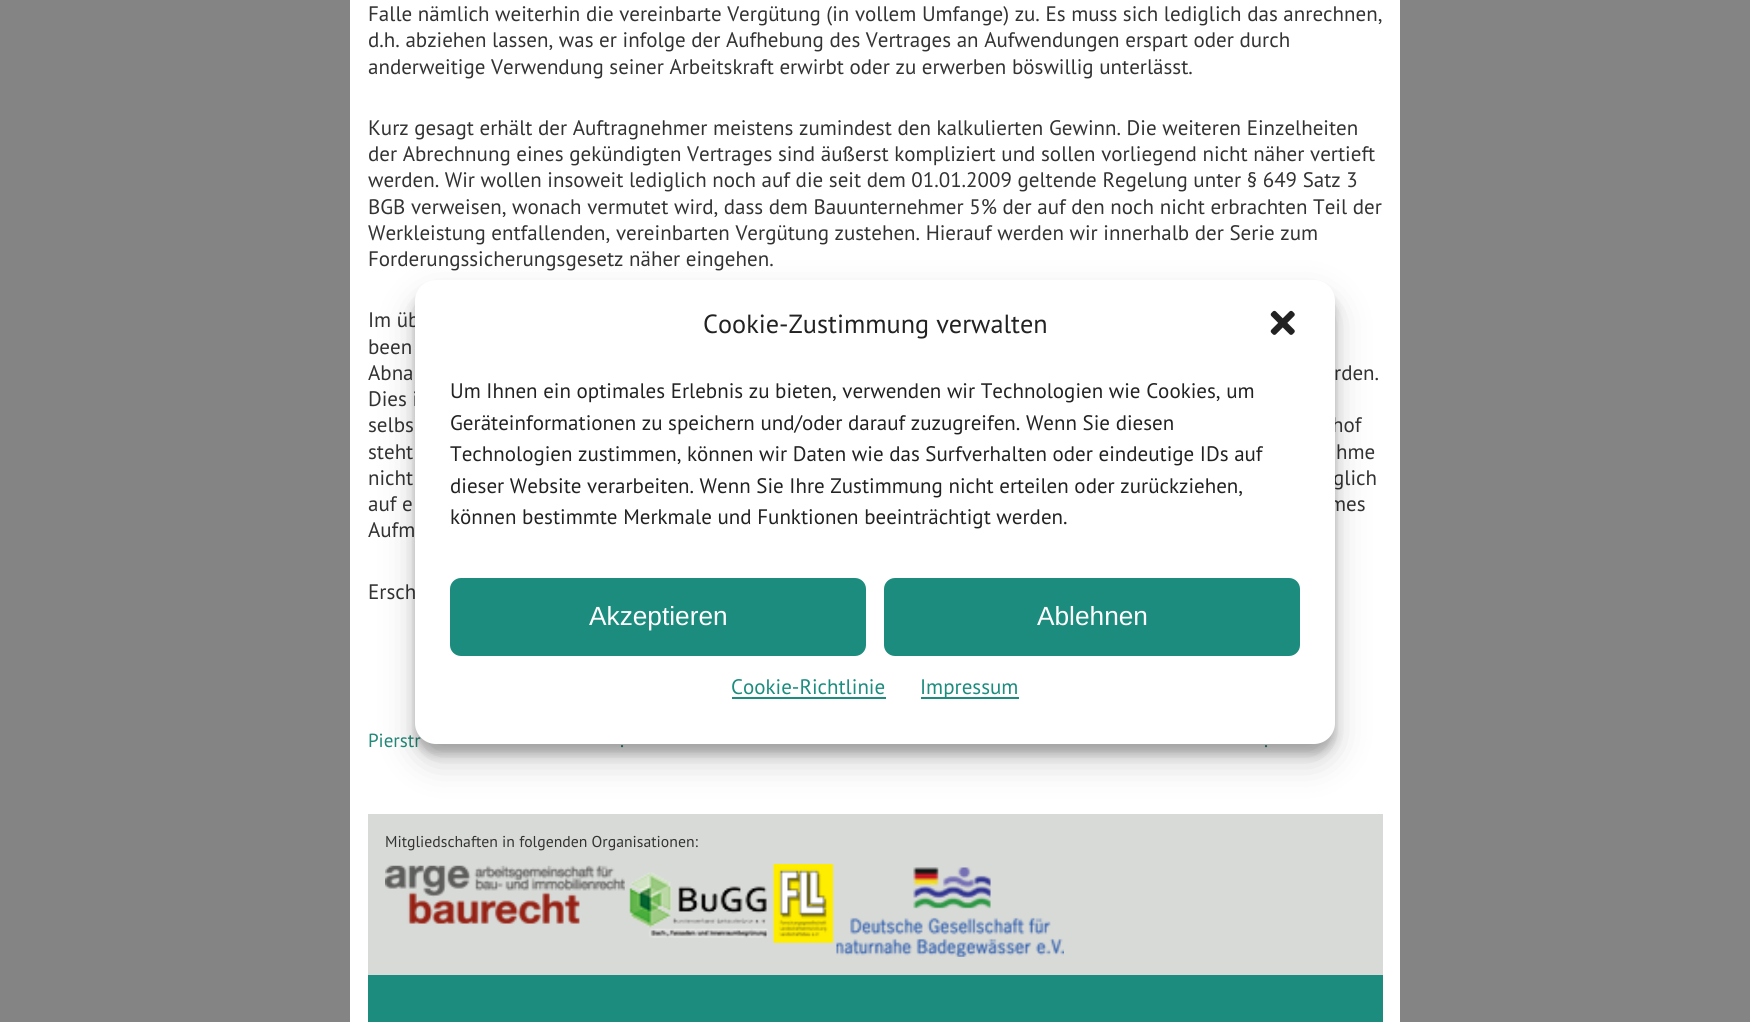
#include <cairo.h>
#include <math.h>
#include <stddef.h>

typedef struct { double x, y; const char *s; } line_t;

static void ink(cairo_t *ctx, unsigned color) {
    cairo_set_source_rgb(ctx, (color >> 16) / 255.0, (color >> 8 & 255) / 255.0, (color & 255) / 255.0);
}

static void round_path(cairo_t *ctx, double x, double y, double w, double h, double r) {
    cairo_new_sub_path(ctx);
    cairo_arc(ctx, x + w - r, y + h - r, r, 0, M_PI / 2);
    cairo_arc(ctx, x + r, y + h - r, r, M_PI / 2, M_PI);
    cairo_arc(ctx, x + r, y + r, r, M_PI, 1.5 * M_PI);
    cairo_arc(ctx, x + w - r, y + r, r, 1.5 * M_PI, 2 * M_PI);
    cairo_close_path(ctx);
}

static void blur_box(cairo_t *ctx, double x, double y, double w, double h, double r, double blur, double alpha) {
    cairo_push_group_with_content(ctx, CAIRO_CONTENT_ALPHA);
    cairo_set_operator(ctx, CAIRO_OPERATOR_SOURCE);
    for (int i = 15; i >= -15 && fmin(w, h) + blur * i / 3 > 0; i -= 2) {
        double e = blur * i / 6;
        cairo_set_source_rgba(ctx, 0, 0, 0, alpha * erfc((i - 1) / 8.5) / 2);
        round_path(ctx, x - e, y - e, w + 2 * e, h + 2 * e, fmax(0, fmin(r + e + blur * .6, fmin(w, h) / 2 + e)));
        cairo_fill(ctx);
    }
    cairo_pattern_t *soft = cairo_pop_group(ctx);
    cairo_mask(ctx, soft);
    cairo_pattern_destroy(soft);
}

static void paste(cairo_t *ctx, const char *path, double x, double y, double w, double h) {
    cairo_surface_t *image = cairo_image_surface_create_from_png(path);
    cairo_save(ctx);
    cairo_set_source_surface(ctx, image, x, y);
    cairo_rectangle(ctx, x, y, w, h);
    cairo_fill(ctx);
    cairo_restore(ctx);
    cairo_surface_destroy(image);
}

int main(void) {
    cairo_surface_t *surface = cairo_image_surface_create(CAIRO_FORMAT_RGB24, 1750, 1022);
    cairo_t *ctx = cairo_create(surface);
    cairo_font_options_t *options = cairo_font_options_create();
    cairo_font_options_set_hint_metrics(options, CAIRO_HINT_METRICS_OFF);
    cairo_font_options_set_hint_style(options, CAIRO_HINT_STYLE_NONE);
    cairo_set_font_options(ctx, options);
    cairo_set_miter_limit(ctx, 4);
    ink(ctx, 0x848484);
    cairo_paint(ctx);
    ink(ctx, 0xFFFFFF);
    cairo_rectangle(ctx, 350, 0, 1050, 1022);
    cairo_fill(ctx);
    cairo_select_font_face(ctx, "PT Sans", CAIRO_FONT_SLANT_NORMAL, CAIRO_FONT_WEIGHT_NORMAL);
    cairo_set_font_size(ctx, 21);
    ink(ctx, 0x333333);
    {
        static const line_t items[] = {
            {368, 21, "Falle nämlich weiterhin die vereinbarte Vergütung (in vollem Umfange) zu. Es muss sich lediglich das anrechnen,"},
            {368, 47, "d.h. abziehen lassen, was er infolge der Aufhebung des Vertrages an Aufwendungen erspart oder durch"},
            {368, 74, "anderweitige Verwendung seiner Arbeitskraft erwirbt oder zu erwerben böswillig unterlässt."},
            {368, 135, "Kurz gesagt erhält der Auftragnehmer meistens zumindest den kalkulierten Gewinn. Die weiteren Einzelheiten"},
            {368, 161, "der Abrechnung eines gekündigten Vertrages sind äußerst kompliziert und sollen vorliegend nicht näher vertieft"},
            {368, 187, "werden. Wir wollen insoweit lediglich noch auf die seit dem 01.01.2009 geltende Regelung unter § 649 Satz 3"},
            {368, 214, "BGB verweisen, wonach vermutet wird, dass dem Bauunternehmer 5% der auf den noch nicht erbrachten Teil der"},
            {368, 240, "Werkleistung entfallenden, vereinbarten Vergütung zustehen. Hierauf werden wir innerhalb der Serie zum"},
            {368, 266, "Forderungssicherungsgesetz näher eingehen."},
            {368, 327, "Im üb"},
            {368, 354, "been"},
            {368, 380, "Abna"},
            {1334, 380, "rden."},
            {368, 406, "Dies i"},
            {368, 432, "selbs"},
            {1332, 432, "hof"},
            {368, 459, "steht"},
            {1336, 459, "hme"},
            {368, 485, "nicht"},
            {1333, 485, "glich"},
            {368, 511, "auf e"},
            {1329, 511, "mes"},
            {368, 537, "Aufm"},
            {368, 599, "Ersch"},
        };
        for (size_t i = 0; i < sizeof items / sizeof *items; i++) {
            cairo_move_to(ctx, items[i].x, items[i].y);
            cairo_show_text(ctx, items[i].s);
        }
    }
    cairo_set_font_size(ctx, 19);
    ink(ctx, 0x228877);
    {
        static const line_t items[] = {
            {368, 747, "Pierstr"},
            {620, 747, "."},
            {1264, 747, "."},
        };
        for (size_t i = 0; i < sizeof items / sizeof *items; i++) {
            cairo_move_to(ctx, items[i].x, items[i].y);
            cairo_show_text(ctx, items[i].s);
        }
    }
    ink(ctx, 0xD8DAD7);
    cairo_rectangle(ctx, 368, 814, 1015, 161);
    cairo_fill(ctx);
    cairo_set_font_size(ctx, 15.75);
    ink(ctx, 0x333333);
    cairo_move_to(ctx, 385, 847);
    cairo_show_text(ctx, "Mitgliedschaften in folgenden Organisationen:");
    paste(ctx, "media/1.png", 385, 865, 240, 59);
    paste(ctx, "media/2.png", 629, 872, 139, 66);
    paste(ctx, "media/3.png", 773, 864, 60, 79);
    paste(ctx, "media/4.png", 836, 867, 228, 90);
    ink(ctx, 0x1C8C7E);
    cairo_rectangle(ctx, 368, 975, 1015, 47);
    cairo_fill(ctx);
    ink(ctx, 0x000000);
    blur_box(ctx, 415, 291, 920, 463, 21, 5, 0.23);
    blur_box(ctx, 415, 298, 920, 463, 21, 17.5, 0.19);
    ink(ctx, 0xFFFFFF);
    round_path(ctx, 415, 280, 920, 464, 21);
    cairo_fill(ctx);
    cairo_set_font_size(ctx, 26.25);
    ink(ctx, 0x222222);
    cairo_move_to(ctx, 703, 333);
    cairo_show_text(ctx, "Cookie-Zustimmung verwalten");
    paste(ctx, "media/5.png", 1270, 310, 25, 25);
    cairo_set_font_size(ctx, 21);
    {
        static const line_t items[] = {
            {450, 398, "Um Ihnen ein optimales Erlebnis zu bieten, verwenden wir Technologien wie Cookies, um"},
            {450, 430, "Geräteinformationen zu speichern und/oder darauf zuzugreifen. Wenn Sie diesen"},
            {450, 461, "Technologien zustimmen, können wir Daten wie das Surfverhalten oder eindeutige IDs auf"},
            {450, 493, "dieser Website verarbeiten. Wenn Sie Ihre Zustimmung nicht erteilen oder zurückziehen,"},
            {450, 524, "können bestimmte Merkmale und Funktionen beeinträchtigt werden."},
        };
        for (size_t i = 0; i < sizeof items / sizeof *items; i++) {
            cairo_move_to(ctx, items[i].x, items[i].y);
            cairo_show_text(ctx, items[i].s);
        }
    }
    ink(ctx, 0x1C8C7E);
    round_path(ctx, 451, 579, 414, 76, 10);
    cairo_fill_preserve(ctx);
    cairo_stroke(ctx);
    cairo_select_font_face(ctx, "Liberation Sans", CAIRO_FONT_SLANT_NORMAL, CAIRO_FONT_WEIGHT_NORMAL);
    cairo_set_font_size(ctx, 26.25);
    ink(ctx, 0xFFFFFF);
    cairo_move_to(ctx, 589, 625);
    cairo_show_text(ctx, "Akzeptieren");
    ink(ctx, 0x1C8C7E);
    round_path(ctx, 885, 579, 414, 76, 10);
    cairo_fill_preserve(ctx);
    cairo_stroke(ctx);
    ink(ctx, 0xFFFFFF);
    cairo_move_to(ctx, 1037, 625);
    cairo_show_text(ctx, "Ablehnen");
    cairo_select_font_face(ctx, "PT Sans", CAIRO_FONT_SLANT_NORMAL, CAIRO_FONT_WEIGHT_NORMAL);
    cairo_set_font_size(ctx, 21);
    ink(ctx, 0x1C8C7E);
    cairo_move_to(ctx, 731, 694);
    cairo_show_text(ctx, "Cookie-Richtlinie");
    cairo_rectangle(ctx, 732, 697, 154, 2);
    cairo_fill(ctx);
    cairo_rectangle(ctx, 921, 697, 98, 2);
    cairo_fill(ctx);
    cairo_move_to(ctx, 920, 694);
    cairo_show_text(ctx, "Impressum");
    cairo_surface_write_to_png(surface, "image.png");
    cairo_font_options_destroy(options);
    cairo_destroy(ctx);
    cairo_surface_destroy(surface);
    return 0;
}
